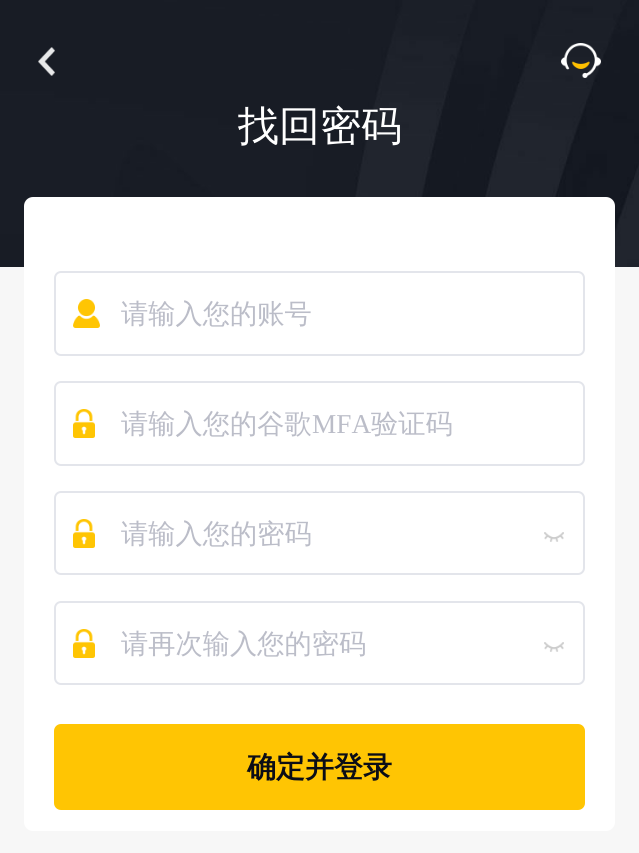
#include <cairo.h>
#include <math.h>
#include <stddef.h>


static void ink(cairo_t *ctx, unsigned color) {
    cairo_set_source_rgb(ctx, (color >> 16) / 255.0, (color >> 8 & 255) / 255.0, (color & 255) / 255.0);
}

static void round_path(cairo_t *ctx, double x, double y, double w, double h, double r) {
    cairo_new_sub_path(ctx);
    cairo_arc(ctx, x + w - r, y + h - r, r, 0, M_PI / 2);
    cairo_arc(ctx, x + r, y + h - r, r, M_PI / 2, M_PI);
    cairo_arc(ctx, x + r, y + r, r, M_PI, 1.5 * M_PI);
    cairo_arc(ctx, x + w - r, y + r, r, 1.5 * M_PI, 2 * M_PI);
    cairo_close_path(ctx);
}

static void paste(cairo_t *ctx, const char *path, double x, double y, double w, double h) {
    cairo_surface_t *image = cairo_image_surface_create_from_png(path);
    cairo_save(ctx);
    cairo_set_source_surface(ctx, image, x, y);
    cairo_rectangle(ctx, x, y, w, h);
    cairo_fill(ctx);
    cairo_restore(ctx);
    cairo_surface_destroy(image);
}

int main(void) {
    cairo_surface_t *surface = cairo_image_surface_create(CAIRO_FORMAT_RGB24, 639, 853);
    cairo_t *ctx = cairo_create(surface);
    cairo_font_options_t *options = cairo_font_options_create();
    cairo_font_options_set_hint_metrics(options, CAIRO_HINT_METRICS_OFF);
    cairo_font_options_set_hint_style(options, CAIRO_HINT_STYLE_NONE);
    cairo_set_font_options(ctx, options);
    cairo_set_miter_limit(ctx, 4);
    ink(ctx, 0xF7F7F7);
    cairo_paint(ctx);
    paste(ctx, "media/1.png", 0, 0, 639, 267);
    paste(ctx, "media/2.png", 38, 47, 17, 29);
    paste(ctx, "media/3.png", 561, 43, 40, 35);
    cairo_select_font_face(ctx, "WenQuanYi Zen Hei Medium", CAIRO_FONT_SLANT_NORMAL, CAIRO_FONT_WEIGHT_NORMAL);
    cairo_set_font_size(ctx, 41);
    ink(ctx, 0xFFFFFF);
    cairo_move_to(ctx, 238, 140);
    cairo_show_text(ctx, "找回密码");
    round_path(ctx, 24, 197, 591, 634, 9);
    cairo_fill(ctx);
    paste(ctx, "media/4.png", 73, 299, 27, 29);
    round_path(ctx, 55, 272, 529, 83, 6);
    ink(ctx, 0xE3E5EB);
    cairo_stroke(ctx);
    cairo_set_font_size(ctx, 27.25);
    ink(ctx, 0xBBBDC8);
    cairo_move_to(ctx, 121, 323);
    cairo_show_text(ctx, "请输入您的账号");
    paste(ctx, "media/5.png", 73, 409, 22, 29);
    round_path(ctx, 55, 382, 529, 83, 6);
    ink(ctx, 0xE3E5EB);
    cairo_stroke(ctx);
    ink(ctx, 0xBBBDC8);
    cairo_move_to(ctx, 121, 433);
    cairo_show_text(ctx, "请输入您的谷歌");
    cairo_select_font_face(ctx, "Liberation Serif", CAIRO_FONT_SLANT_NORMAL, CAIRO_FONT_WEIGHT_NORMAL);
    cairo_move_to(ctx, 312, 433);
    cairo_show_text(ctx, "MFA");
    cairo_select_font_face(ctx, "WenQuanYi Zen Hei Medium", CAIRO_FONT_SLANT_NORMAL, CAIRO_FONT_WEIGHT_NORMAL);
    cairo_move_to(ctx, 371, 433);
    cairo_show_text(ctx, "验证码");
    paste(ctx, "media/5.png", 73, 519, 22, 29);
    round_path(ctx, 55, 492, 529, 82, 6);
    ink(ctx, 0xE3E5EB);
    cairo_stroke(ctx);
    ink(ctx, 0xBBBDC8);
    cairo_move_to(ctx, 121, 543);
    cairo_show_text(ctx, "请输入您的密码");
    paste(ctx, "media/6.png", 544, 532, 20, 10);
    paste(ctx, "media/5.png", 73, 629, 22, 29);
    round_path(ctx, 55, 602, 529, 82, 6);
    ink(ctx, 0xE3E5EB);
    cairo_stroke(ctx);
    ink(ctx, 0xBBBDC8);
    cairo_move_to(ctx, 121, 653);
    cairo_show_text(ctx, "请再次输入您的密码");
    paste(ctx, "media/6.png", 544, 642, 20, 10);
    ink(ctx, 0xFFC503);
    round_path(ctx, 54, 724, 531, 86, 7);
    cairo_fill(ctx);
    cairo_select_font_face(ctx, "WenQuanYi Zen Hei", CAIRO_FONT_SLANT_NORMAL, CAIRO_FONT_WEIGHT_BOLD);
    cairo_set_font_size(ctx, 29);
    ink(ctx, 0x0B0D16);
    cairo_move_to(ctx, 247, 777);
    cairo_show_text(ctx, "确定并登录");
    cairo_surface_write_to_png(surface, "image.png");
    cairo_font_options_destroy(options);
    cairo_destroy(ctx);
    cairo_surface_destroy(surface);
    return 0;
}
